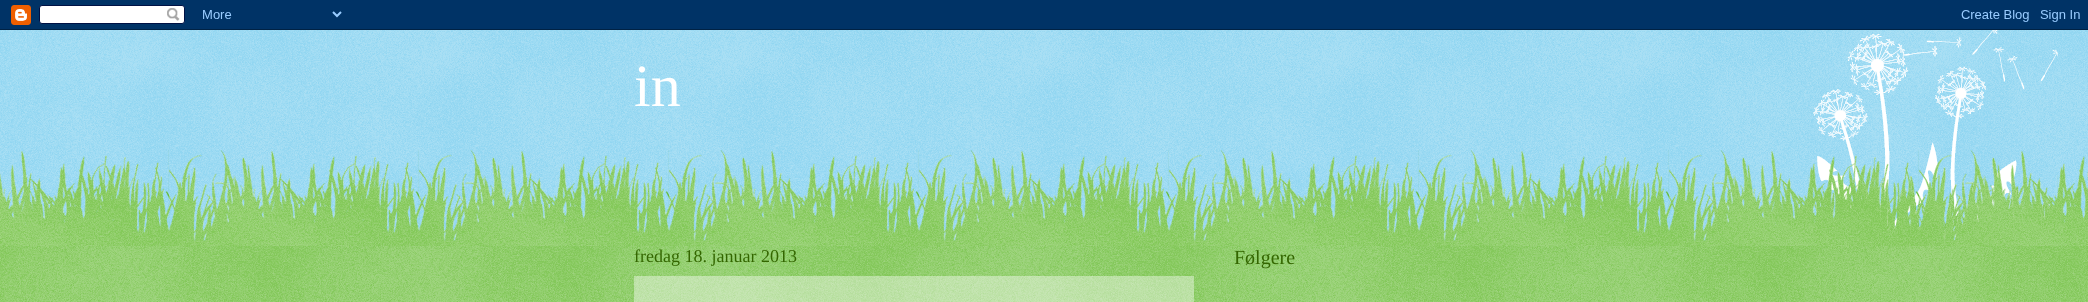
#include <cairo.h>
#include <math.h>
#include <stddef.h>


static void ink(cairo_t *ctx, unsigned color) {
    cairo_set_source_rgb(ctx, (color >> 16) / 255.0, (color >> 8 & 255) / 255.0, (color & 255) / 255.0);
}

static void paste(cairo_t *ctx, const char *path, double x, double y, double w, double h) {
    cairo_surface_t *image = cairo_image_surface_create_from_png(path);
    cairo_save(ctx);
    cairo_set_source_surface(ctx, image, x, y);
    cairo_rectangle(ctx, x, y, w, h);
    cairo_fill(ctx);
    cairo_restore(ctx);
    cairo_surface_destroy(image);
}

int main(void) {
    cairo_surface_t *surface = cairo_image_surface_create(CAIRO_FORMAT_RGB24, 2088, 302);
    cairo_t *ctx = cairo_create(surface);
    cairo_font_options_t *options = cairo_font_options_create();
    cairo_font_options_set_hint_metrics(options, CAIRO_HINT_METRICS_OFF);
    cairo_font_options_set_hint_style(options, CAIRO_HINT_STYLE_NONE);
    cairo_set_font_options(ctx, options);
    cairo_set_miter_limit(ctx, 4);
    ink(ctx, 0x77CCEE);
    cairo_paint(ctx);
    paste(ctx, "media/1.png", 0, 30, 2088, 211);
    paste(ctx, "media/2.png", 0, 0, 2088, 30);
    cairo_select_font_face(ctx, "Liberation Serif", CAIRO_FONT_SLANT_NORMAL, CAIRO_FONT_WEIGHT_NORMAL);
    cairo_set_font_size(ctx, 60);
    ink(ctx, 0xFFFFFF);
    cairo_move_to(ctx, 634, 106);
    cairo_show_text(ctx, "in");
    ink(ctx, 0x66BB33);
    cairo_rectangle(ctx, 0, 246, 2088, 56);
    cairo_fill(ctx);
    paste(ctx, "media/3.png", 0, 246, 2088, 56);
    paste(ctx, "media/4.png", 1808, 30, 250, 211);
    paste(ctx, "media/5.png", 0, 150, 2088, 96);
    cairo_set_font_size(ctx, 18);
    ink(ctx, 0x336600);
    cairo_move_to(ctx, 634, 262);
    cairo_show_text(ctx, "fredag 18. januar 2013");
    cairo_set_source_rgba(ctx, 1, 1, 1, 0.4);
    cairo_rectangle(ctx, 634, 276, 560, 26);
    cairo_fill(ctx);
    cairo_set_font_size(ctx, 20);
    ink(ctx, 0x336600);
    cairo_move_to(ctx, 1234, 264);
    cairo_show_text(ctx, "Følgere");
    cairo_surface_write_to_png(surface, "image.png");
    cairo_font_options_destroy(options);
    cairo_destroy(ctx);
    cairo_surface_destroy(surface);
    return 0;
}
